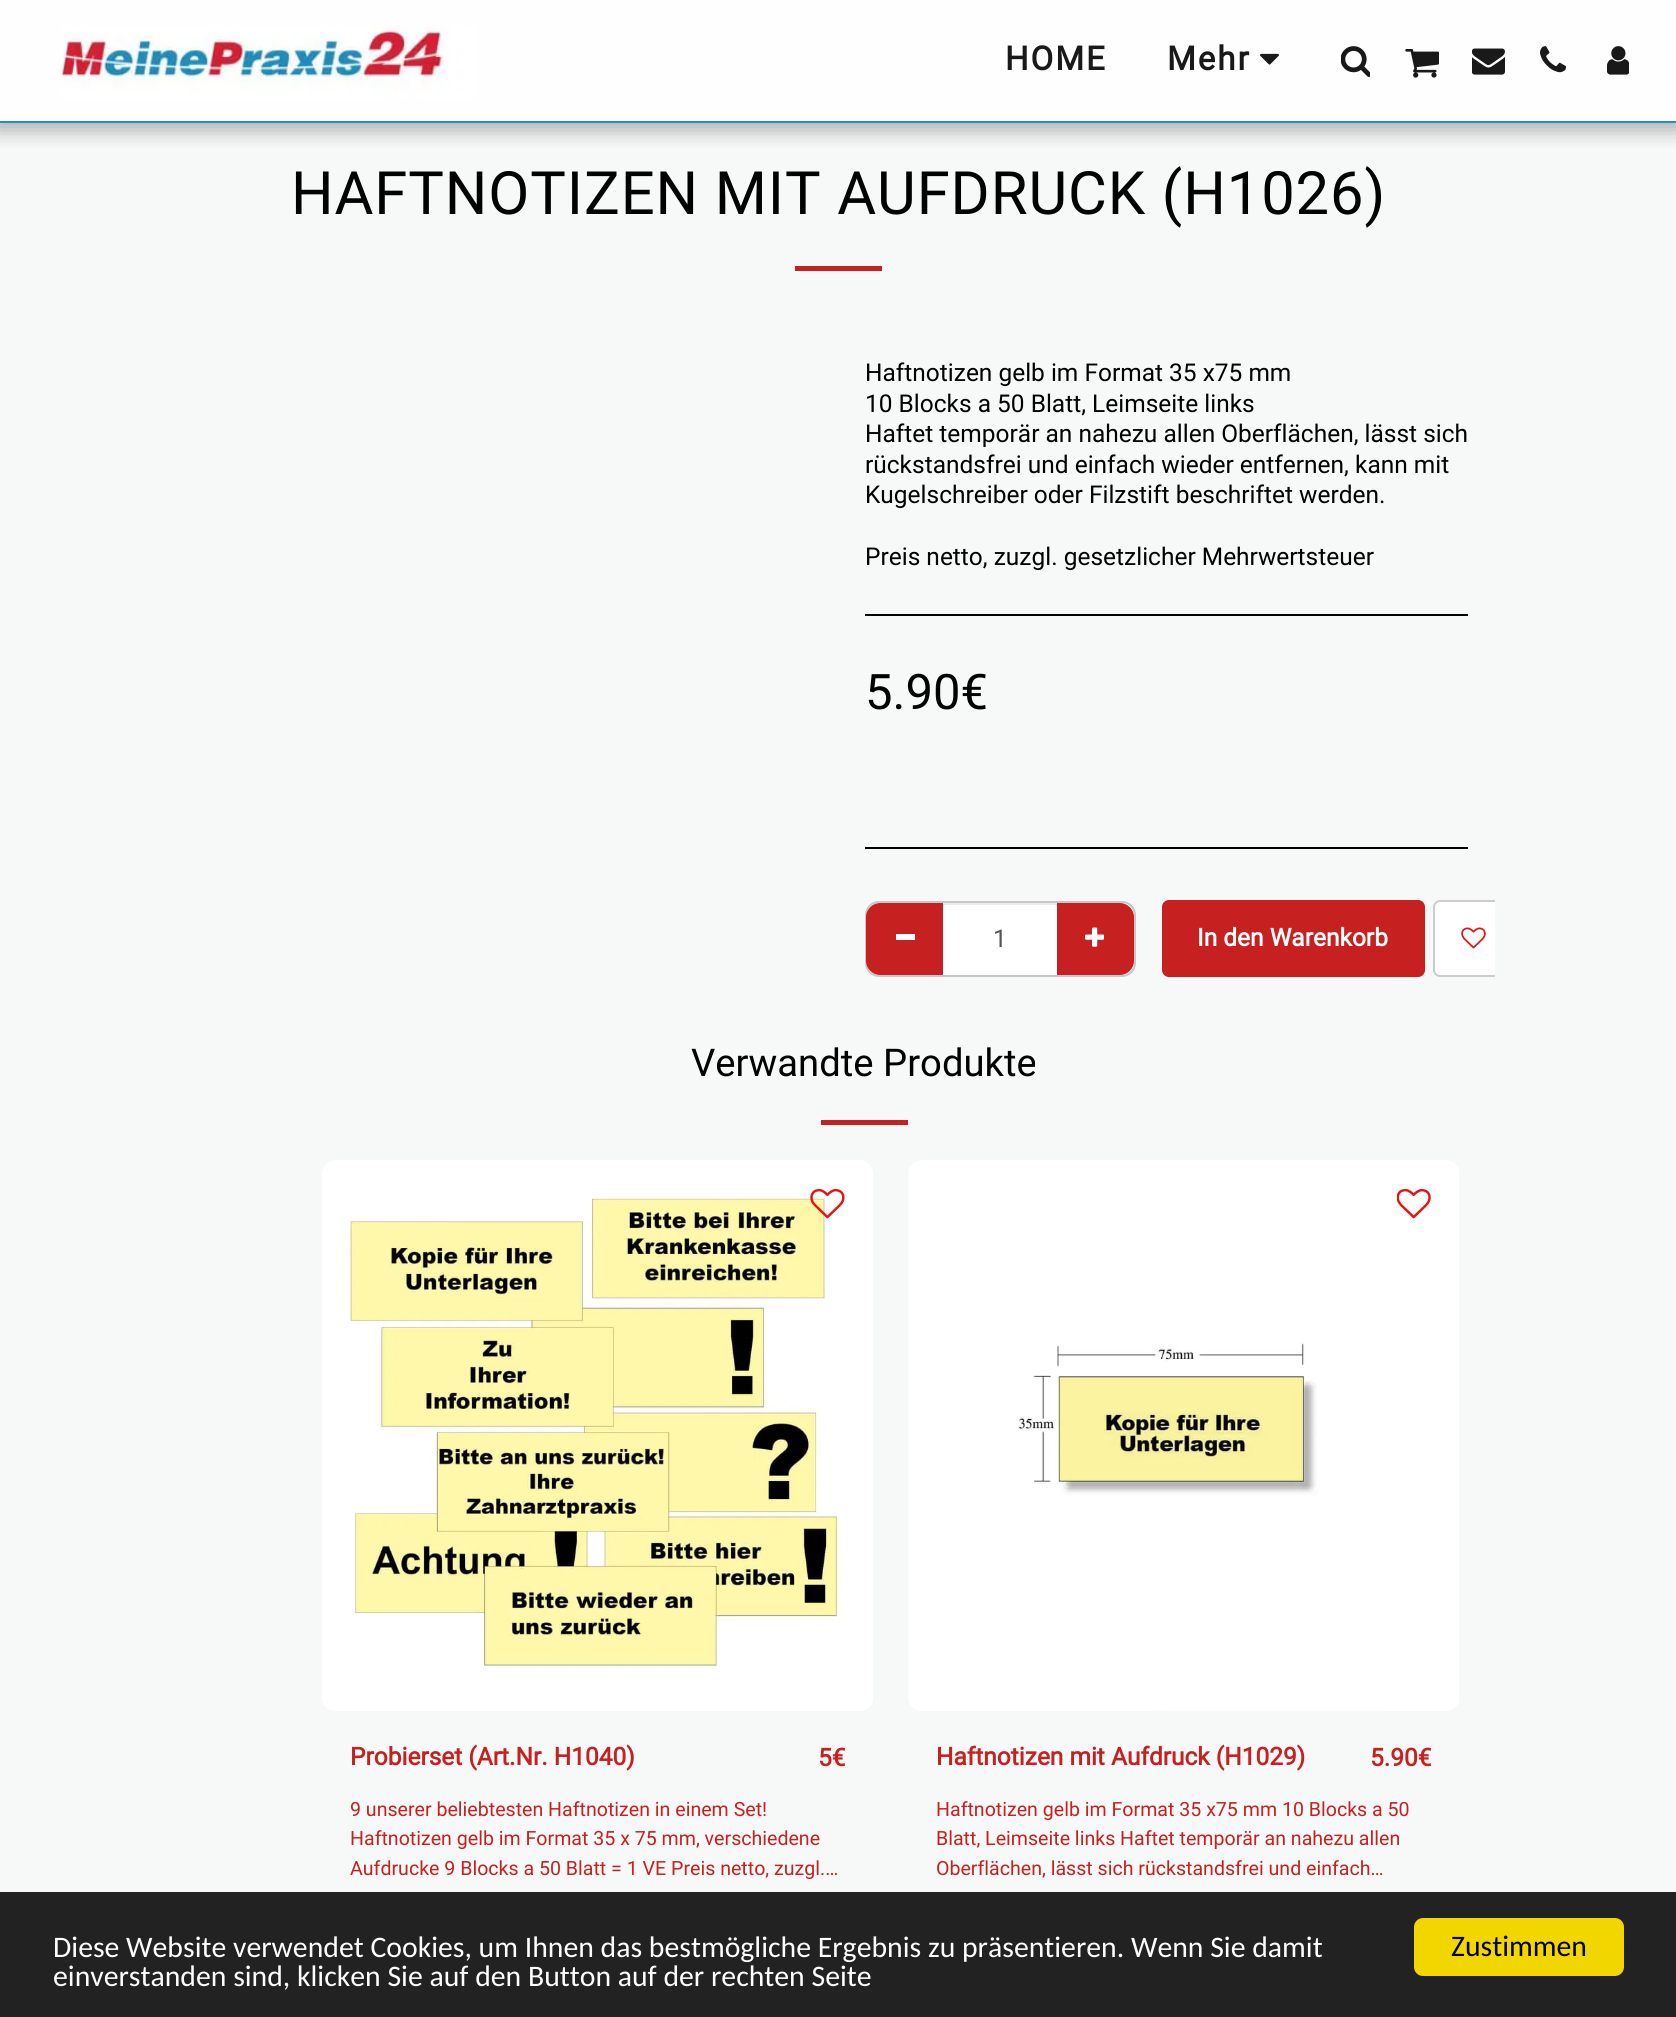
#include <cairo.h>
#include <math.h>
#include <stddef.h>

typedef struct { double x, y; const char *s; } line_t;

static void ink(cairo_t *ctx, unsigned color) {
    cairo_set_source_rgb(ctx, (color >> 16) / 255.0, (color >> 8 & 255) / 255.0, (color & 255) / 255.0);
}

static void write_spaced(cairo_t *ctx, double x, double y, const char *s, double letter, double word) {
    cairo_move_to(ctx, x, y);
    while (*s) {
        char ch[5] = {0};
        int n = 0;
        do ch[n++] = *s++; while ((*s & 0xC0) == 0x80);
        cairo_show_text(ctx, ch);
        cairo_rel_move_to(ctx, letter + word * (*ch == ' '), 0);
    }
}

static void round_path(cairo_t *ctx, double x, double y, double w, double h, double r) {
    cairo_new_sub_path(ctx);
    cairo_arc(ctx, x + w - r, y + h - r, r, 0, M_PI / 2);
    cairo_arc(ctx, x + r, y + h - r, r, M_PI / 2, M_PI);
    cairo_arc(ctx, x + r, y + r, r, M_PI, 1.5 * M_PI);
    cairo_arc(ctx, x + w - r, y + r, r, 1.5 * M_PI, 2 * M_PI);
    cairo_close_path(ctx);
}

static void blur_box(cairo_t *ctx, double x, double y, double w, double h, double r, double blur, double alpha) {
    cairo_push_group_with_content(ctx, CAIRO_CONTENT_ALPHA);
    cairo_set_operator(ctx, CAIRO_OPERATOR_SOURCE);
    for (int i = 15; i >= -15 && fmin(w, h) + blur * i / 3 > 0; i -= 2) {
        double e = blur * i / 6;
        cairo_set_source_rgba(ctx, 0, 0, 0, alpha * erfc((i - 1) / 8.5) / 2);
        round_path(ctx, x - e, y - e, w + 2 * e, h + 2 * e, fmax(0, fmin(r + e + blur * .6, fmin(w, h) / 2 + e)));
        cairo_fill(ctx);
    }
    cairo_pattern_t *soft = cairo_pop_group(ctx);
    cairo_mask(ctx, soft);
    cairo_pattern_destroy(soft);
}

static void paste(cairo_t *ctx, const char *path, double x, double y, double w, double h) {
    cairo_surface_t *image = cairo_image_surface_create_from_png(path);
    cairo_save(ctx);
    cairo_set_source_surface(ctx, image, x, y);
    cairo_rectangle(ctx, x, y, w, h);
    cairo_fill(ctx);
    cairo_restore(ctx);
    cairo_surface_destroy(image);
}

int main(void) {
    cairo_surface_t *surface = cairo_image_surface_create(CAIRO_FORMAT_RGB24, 1676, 2017);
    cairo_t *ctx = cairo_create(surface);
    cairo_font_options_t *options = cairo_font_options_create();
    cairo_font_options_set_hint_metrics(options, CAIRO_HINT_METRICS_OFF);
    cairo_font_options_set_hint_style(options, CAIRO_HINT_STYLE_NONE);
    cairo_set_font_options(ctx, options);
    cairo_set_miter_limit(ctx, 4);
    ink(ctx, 0xF7F9F8);
    cairo_paint(ctx);
    cairo_save(ctx);
    cairo_rectangle(ctx, 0, 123, 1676, 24);
    cairo_clip(ctx);
    ink(ctx, 0x191919);
    blur_box(ctx, -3, 0, 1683, 130, 0, 10.5, 0.35);
    cairo_restore(ctx);
    cairo_set_source_rgba(ctx, 1, 1, 1, 0.9);
    cairo_rectangle(ctx, 0, 0, 1676, 121);
    cairo_fill(ctx);
    ink(ctx, 0x1993D0);
    cairo_rectangle(ctx, 0, 121, 1676, 2);
    cairo_fill(ctx);
    paste(ctx, "media/1.png", 61, 26, 416, 73);
    cairo_select_font_face(ctx, "Roboto", CAIRO_FONT_SLANT_NORMAL, CAIRO_FONT_WEIGHT_BOLD);
    cairo_set_font_size(ctx, 33);
    ink(ctx, 0x191919);
    write_spaced(ctx, 1005, 70, "HOME", 2, 0);
    write_spaced(ctx, 1167, 70, "Mehr", 2, 0);
    paste(ctx, "media/2.png", 1260, 53, 19, 12);
    paste(ctx, "media/3.png", 1341, 46, 29, 31);
    paste(ctx, "media/4.png", 1405, 49, 34, 29);
    paste(ctx, "media/5.png", 1472, 48, 33, 27);
    paste(ctx, "media/6.png", 1540, 46, 26, 27);
    paste(ctx, "media/7.png", 1607, 46, 22, 29);
    cairo_select_font_face(ctx, "Roboto", CAIRO_FONT_SLANT_NORMAL, CAIRO_FONT_WEIGHT_NORMAL);
    cairo_set_font_size(ctx, 59.75);
    ink(ctx, 0x000000);
    write_spaced(ctx, 291, 214, "HAFTNOTIZEN MIT AUFDRUCK (H1026)", 0.9, 0);
    ink(ctx, 0xC62020);
    cairo_rectangle(ctx, 795, 266, 87, 5);
    cairo_fill(ctx);
    cairo_set_font_size(ctx, 24.5);
    ink(ctx, 0x000000);
    {
        static const line_t items[] = {
            {865, 381, "Haftnotizen gelb im Format 35 x75 mm"},
            {865, 412, "10 Blocks a 50 Blatt, Leimseite links"},
            {865, 442, "Haftet temporär an nahezu allen Oberflächen, lässt sich"},
            {865, 473, "rückstandsfrei und einfach wieder entfernen, kann mit"},
            {865, 503, "Kugelschreiber oder Filzstift beschriftet werden."},
            {865, 565, "Preis netto, zuzgl. gesetzlicher Mehrwertsteuer"},
        };
        for (size_t i = 0; i < sizeof items / sizeof *items; i++) {
            cairo_move_to(ctx, items[i].x, items[i].y);
            cairo_show_text(ctx, items[i].s);
        }
    }
    cairo_rectangle(ctx, 865, 614, 603, 2);
    cairo_fill(ctx);
    cairo_set_font_size(ctx, 49);
    cairo_move_to(ctx, 865, 709);
    cairo_show_text(ctx, "5.90€");
    cairo_rectangle(ctx, 865, 847, 603, 2);
    cairo_fill(ctx);
    round_path(ctx, 866, 902, 269, 74, 13);
    ink(ctx, 0xC6C7C6);
    cairo_stroke(ctx);
    ink(ctx, 0xC62020);
    cairo_new_path(ctx);
    cairo_move_to(ctx, 880, 903);
    cairo_line_to(ctx, 945, 903);
    cairo_line_to(ctx, 945, 975);
    cairo_line_to(ctx, 880, 975);
    cairo_curve_to(ctx, 872.5, 975, 866, 968.5, 866, 961);
    cairo_line_to(ctx, 866, 917);
    cairo_curve_to(ctx, 866, 909.5, 872.5, 903, 880, 903);
    cairo_close_path(ctx);
    cairo_fill(ctx);
    ink(ctx, 0xFFFFFF);
    cairo_rectangle(ctx, 896, 934, 19, 6);
    cairo_fill(ctx);
    ink(ctx, 0xC62020);
    cairo_new_path(ctx);
    cairo_move_to(ctx, 1055, 903);
    cairo_line_to(ctx, 1120, 903);
    cairo_curve_to(ctx, 1127.5, 903, 1134, 909.5, 1134, 917);
    cairo_line_to(ctx, 1134, 961);
    cairo_curve_to(ctx, 1134, 968.5, 1127.5, 975, 1120, 975);
    cairo_line_to(ctx, 1055, 975);
    cairo_close_path(ctx);
    cairo_fill(ctx);
    ink(ctx, 0xFFFFFF);
    cairo_rectangle(ctx, 943, 905, 114, 70);
    cairo_fill(ctx);
    ink(ctx, 0xECECEC);
    cairo_rectangle(ctx, 943, 903, 114, 2);
    cairo_fill(ctx);
    cairo_set_font_size(ctx, 24.5);
    ink(ctx, 0x555555);
    cairo_move_to(ctx, 993, 947);
    cairo_show_text(ctx, "1");
    paste(ctx, "media/8.png", 1085, 927, 19, 20);
    ink(ctx, 0xC62020);
    round_path(ctx, 1163, 901, 261, 75, 6);
    cairo_fill_preserve(ctx);
    cairo_stroke(ctx);
    cairo_select_font_face(ctx, "Roboto", CAIRO_FONT_SLANT_NORMAL, CAIRO_FONT_WEIGHT_BOLD);
    ink(ctx, 0xFFFFFF);
    cairo_move_to(ctx, 1197, 946);
    cairo_show_text(ctx, "In den Warenkorb");
    cairo_new_path(ctx);
    cairo_move_to(ctx, 1440, 900);
    cairo_line_to(ctx, 1495, 900);
    cairo_line_to(ctx, 1495, 977);
    cairo_line_to(ctx, 1440, 977);
    cairo_curve_to(ctx, 1436, 977, 1433, 974, 1433, 970);
    cairo_line_to(ctx, 1433, 907);
    cairo_curve_to(ctx, 1433, 903, 1436, 900, 1440, 900);
    cairo_close_path(ctx);
    cairo_fill(ctx);
    cairo_save(ctx);
    cairo_rectangle(ctx, 838, 359, 657, 632);
    cairo_clip(ctx);
    round_path(ctx, 1434, 901, 79, 75, 6);
    ink(ctx, 0xCCCCCC);
    cairo_stroke(ctx);
    cairo_restore(ctx);
    paste(ctx, "media/9.png", 1461, 927, 25, 22);
    cairo_select_font_face(ctx, "Roboto", CAIRO_FONT_SLANT_NORMAL, CAIRO_FONT_WEIGHT_NORMAL);
    cairo_set_font_size(ctx, 38.25);
    ink(ctx, 0x000000);
    cairo_move_to(ctx, 691, 1076);
    cairo_show_text(ctx, "Verwandte Produkte");
    ink(ctx, 0xC62020);
    cairo_rectangle(ctx, 821, 1120, 87, 5);
    cairo_fill(ctx);
    paste(ctx, "media/10.png", 322, 1160, 551, 551);
    paste(ctx, "media/11.png", 810, 1188, 35, 31);
    cairo_select_font_face(ctx, "Roboto", CAIRO_FONT_SLANT_NORMAL, CAIRO_FONT_WEIGHT_BOLD);
    cairo_set_font_size(ctx, 24.5);
    cairo_move_to(ctx, 350, 1765);
    cairo_show_text(ctx, "Probierset (Art.Nr. H1040)");
    cairo_move_to(ctx, 818, 1766);
    cairo_show_text(ctx, "5€");
    cairo_select_font_face(ctx, "Roboto", CAIRO_FONT_SLANT_NORMAL, CAIRO_FONT_WEIGHT_NORMAL);
    cairo_set_font_size(ctx, 19.6);
    {
        static const line_t items[] = {
            {350, 1816, "9 unserer beliebtesten Haftnotizen in einem Set!"},
            {350, 1845, "Haftnotizen gelb im Format 35 x 75 mm, verschiedene"},
            {350, 1875, "Aufdrucke 9 Blocks a 50 Blatt = 1 VE Preis netto, zuzgl.…"},
        };
        for (size_t i = 0; i < sizeof items / sizeof *items; i++) {
            cairo_move_to(ctx, items[i].x, items[i].y);
            cairo_show_text(ctx, items[i].s);
        }
    }
    paste(ctx, "media/12.png", 908, 1160, 551, 551);
    paste(ctx, "media/13.png", 1397, 1188, 34, 31);
    cairo_select_font_face(ctx, "Roboto", CAIRO_FONT_SLANT_NORMAL, CAIRO_FONT_WEIGHT_BOLD);
    cairo_set_font_size(ctx, 24.5);
    cairo_move_to(ctx, 936, 1765);
    cairo_show_text(ctx, "Haftnotizen mit Aufdruck (H1029)");
    cairo_move_to(ctx, 1370, 1766);
    cairo_show_text(ctx, "5.90€");
    cairo_select_font_face(ctx, "Roboto", CAIRO_FONT_SLANT_NORMAL, CAIRO_FONT_WEIGHT_NORMAL);
    cairo_set_font_size(ctx, 19.6);
    {
        static const line_t items[] = {
            {936, 1816, "Haftnotizen gelb im Format 35 x75 mm 10 Blocks a 50"},
            {936, 1845, "Blatt, Leimseite links Haftet temporär an nahezu allen"},
            {936, 1875, "Oberflächen, lässt sich rückstandsfrei und einfach…"},
        };
        for (size_t i = 0; i < sizeof items / sizeof *items; i++) {
            cairo_move_to(ctx, items[i].x, items[i].y);
            cairo_show_text(ctx, items[i].s);
        }
    }
    ink(ctx, 0x222222);
    cairo_rectangle(ctx, 0, 1892, 1676, 125);
    cairo_fill(ctx);
    cairo_select_font_face(ctx, "Carlito", CAIRO_FONT_SLANT_NORMAL, CAIRO_FONT_WEIGHT_NORMAL);
    cairo_set_font_size(ctx, 29.75);
    ink(ctx, 0xFFFFFF);
    cairo_move_to(ctx, 53, 1957);
    cairo_show_text(ctx, "Diese Website verwendet Cookies, um Ihnen das bestmögliche Ergebnis zu präsentieren. Wenn Sie damit");
    cairo_move_to(ctx, 53, 1986);
    cairo_show_text(ctx, "einverstanden sind, klicken Sie auf den Button auf der rechten Seite");
    ink(ctx, 0xF1D600);
    round_path(ctx, 1414, 1918, 210, 58, 9);
    cairo_fill(ctx);
    ink(ctx, 0x000000);
    cairo_move_to(ctx, 1451, 1956);
    cairo_show_text(ctx, "Zustimmen");
    cairo_surface_write_to_png(surface, "image.png");
    cairo_font_options_destroy(options);
    cairo_destroy(ctx);
    cairo_surface_destroy(surface);
    return 0;
}
